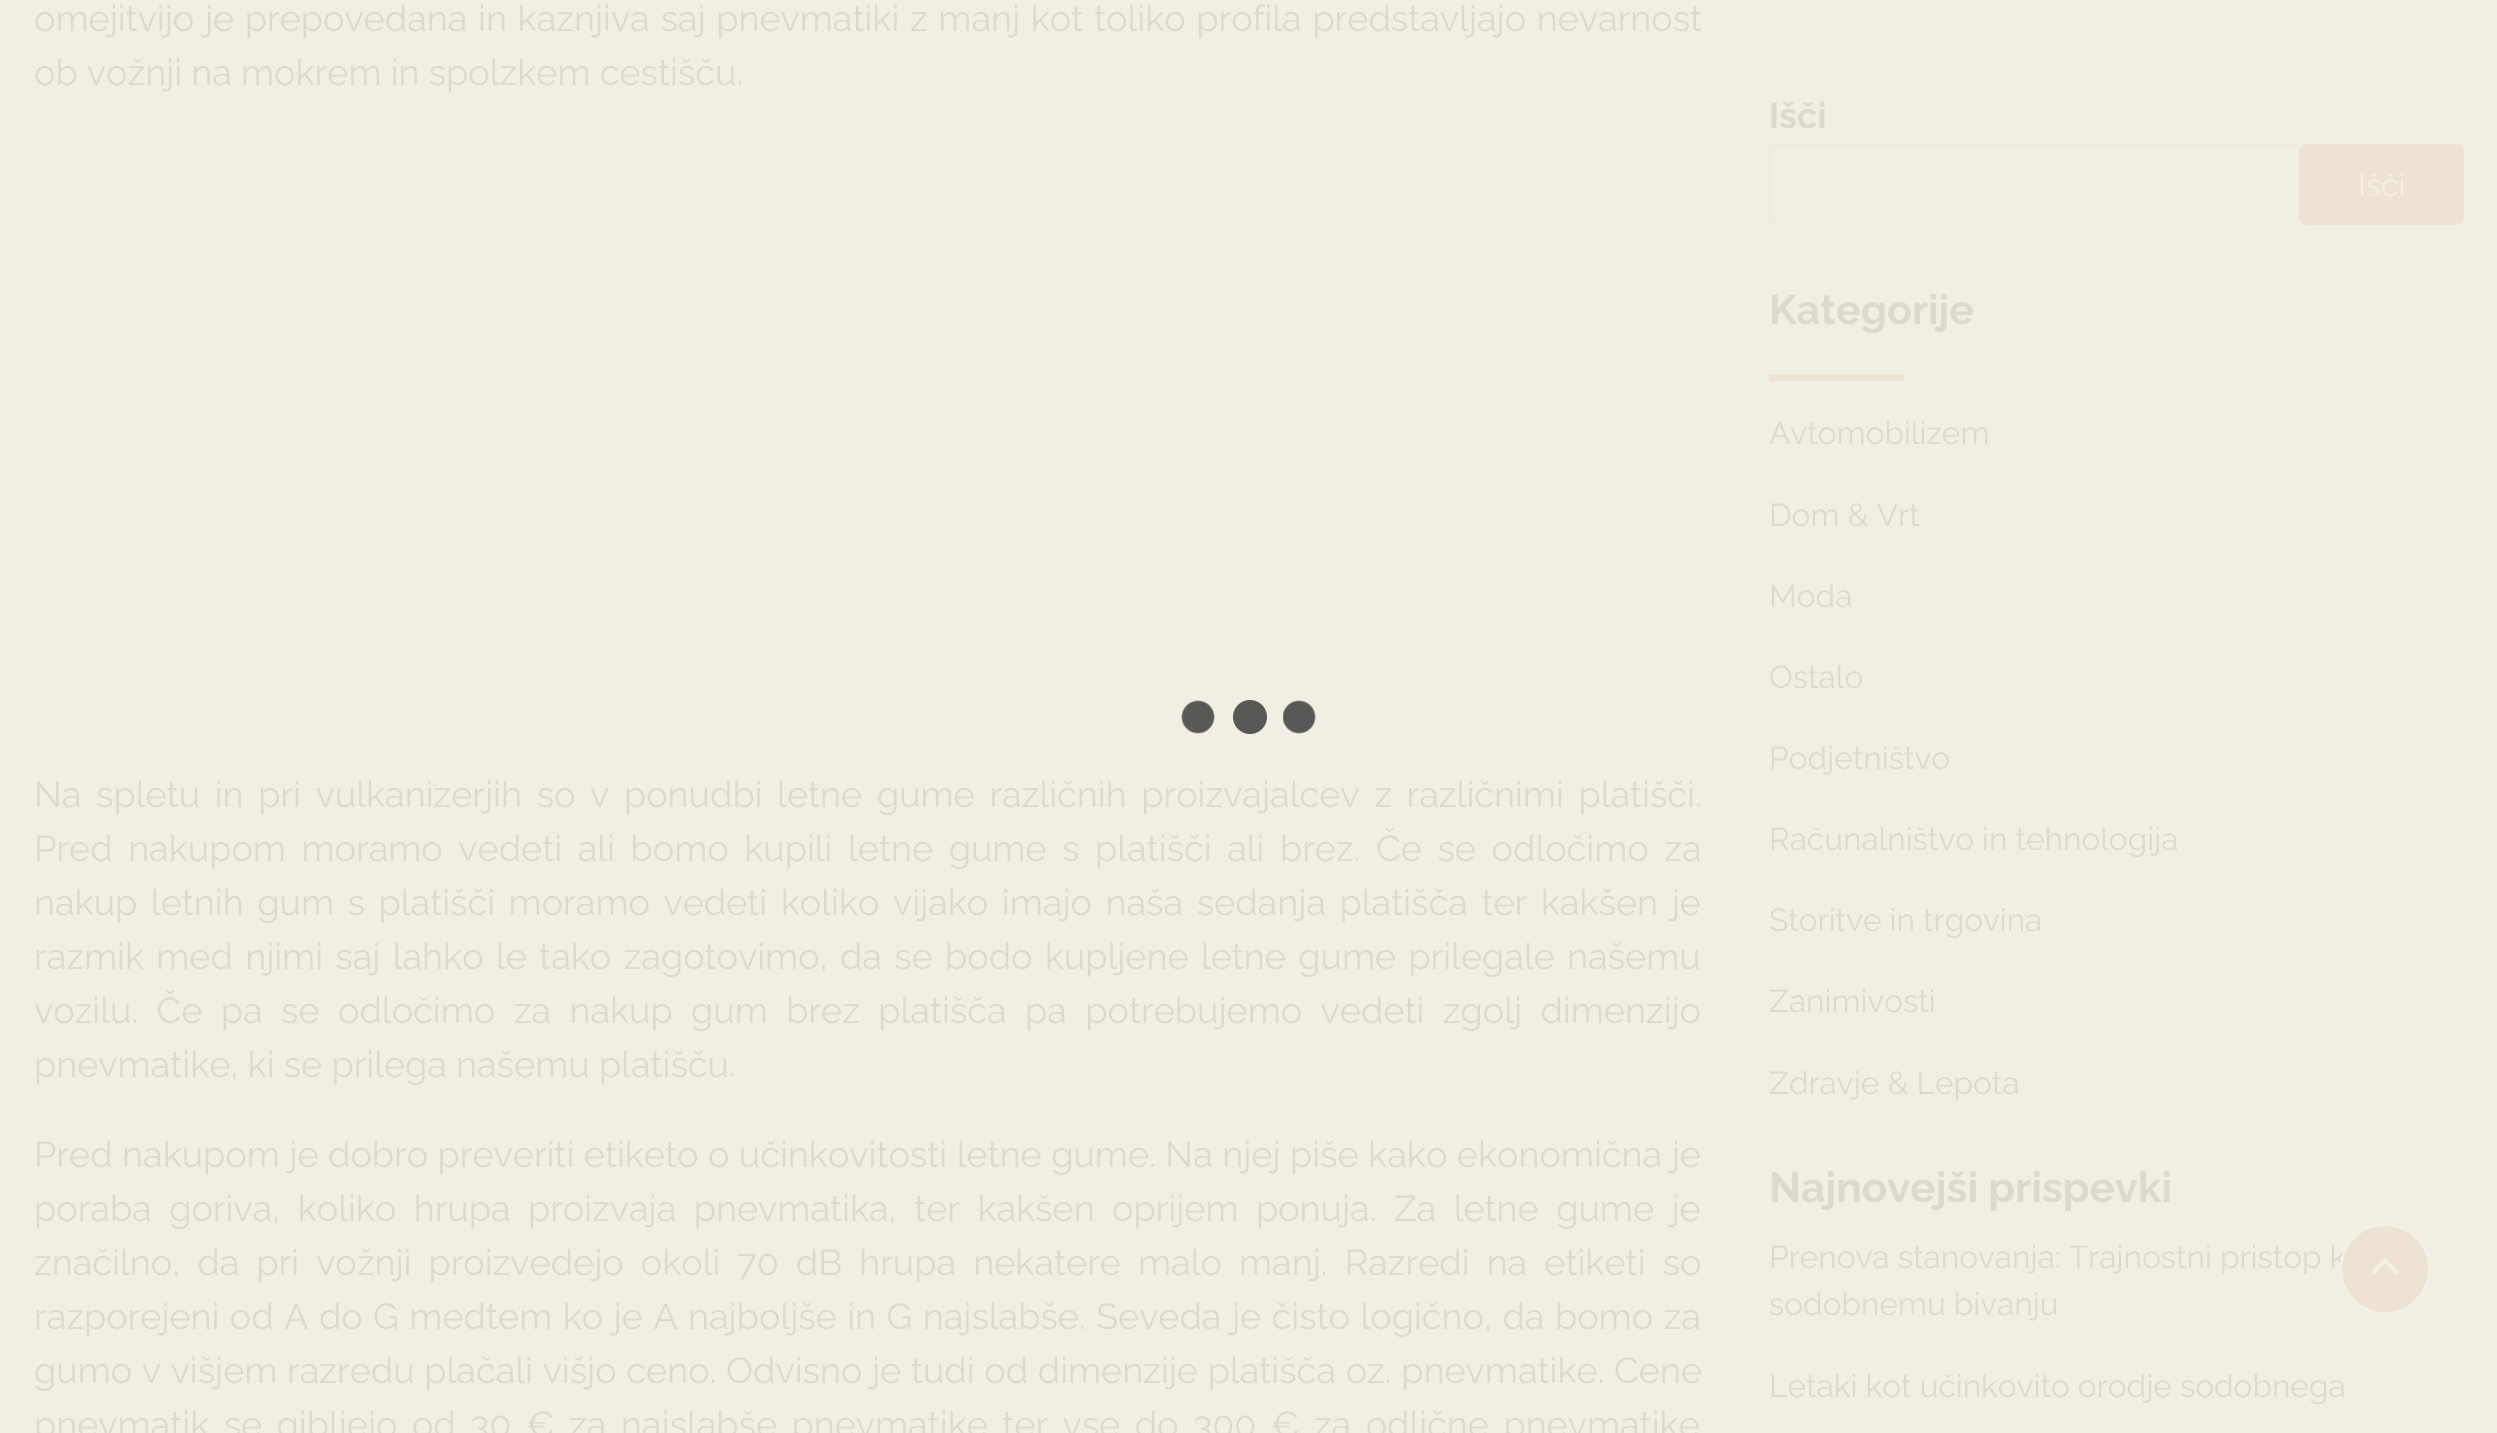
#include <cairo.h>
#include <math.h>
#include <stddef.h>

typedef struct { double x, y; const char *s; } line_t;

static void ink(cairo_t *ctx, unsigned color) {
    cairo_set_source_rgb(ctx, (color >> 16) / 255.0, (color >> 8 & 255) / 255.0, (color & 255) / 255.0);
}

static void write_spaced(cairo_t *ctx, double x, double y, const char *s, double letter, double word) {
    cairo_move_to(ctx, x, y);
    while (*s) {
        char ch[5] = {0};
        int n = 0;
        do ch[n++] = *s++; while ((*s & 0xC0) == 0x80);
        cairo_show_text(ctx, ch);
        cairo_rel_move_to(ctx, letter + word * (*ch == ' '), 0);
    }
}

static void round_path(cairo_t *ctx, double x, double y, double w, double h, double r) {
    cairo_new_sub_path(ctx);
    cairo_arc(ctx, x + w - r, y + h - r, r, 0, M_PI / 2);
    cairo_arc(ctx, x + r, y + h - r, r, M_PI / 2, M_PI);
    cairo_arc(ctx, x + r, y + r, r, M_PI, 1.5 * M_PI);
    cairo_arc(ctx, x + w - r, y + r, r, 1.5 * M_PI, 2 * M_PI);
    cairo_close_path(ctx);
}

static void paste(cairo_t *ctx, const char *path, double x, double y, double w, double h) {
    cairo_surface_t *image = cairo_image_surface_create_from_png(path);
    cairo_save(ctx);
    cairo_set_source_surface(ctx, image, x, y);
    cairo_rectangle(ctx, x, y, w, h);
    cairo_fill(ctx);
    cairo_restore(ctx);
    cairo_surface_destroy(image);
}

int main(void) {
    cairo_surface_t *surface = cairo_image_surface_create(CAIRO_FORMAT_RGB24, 2497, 1433);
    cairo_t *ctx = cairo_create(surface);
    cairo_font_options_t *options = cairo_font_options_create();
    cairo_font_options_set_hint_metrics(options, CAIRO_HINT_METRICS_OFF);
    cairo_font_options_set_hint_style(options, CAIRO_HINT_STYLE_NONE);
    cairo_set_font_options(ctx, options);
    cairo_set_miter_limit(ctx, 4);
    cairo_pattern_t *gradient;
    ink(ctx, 0xF1EFE3);
    cairo_paint(ctx);
    cairo_select_font_face(ctx, "Raleway", CAIRO_FONT_SLANT_NORMAL, CAIRO_FONT_WEIGHT_NORMAL);
    cairo_set_font_size(ctx, 36);
    ink(ctx, 0xDBDACF);
    write_spaced(ctx, 34, 31, "omejitvijo je prepovedana in kaznjiva saj pnevmatiki z manj kot toliko profila predstavljajo nevarnost", 0, 1.5);
    cairo_move_to(ctx, 34, 85);
    cairo_show_text(ctx, "ob vožnji na mokrem in spolzkem cestišču.");
    write_spaced(ctx, 34, 807, "Na spletu in pri vulkanizerjih so v ponudbi letne gume različnih proizvajalcev z različnimi platišči.", 0, 5.5);
    write_spaced(ctx, 34, 861, "Pred nakupom moramo vedeti ali bomo kupili letne gume s platišči ali brez. Če se odločimo za", 0, 6.4);
    write_spaced(ctx, 34, 915, "nakup letnih gum s platišči moramo vedeti koliko vijako imajo naša sedanja platišča ter kakšen je", 0, 4.4);
    write_spaced(ctx, 34, 969, "razmik med njimi saj lahko le tako zagotovimo, da se bodo kupljene letne gume prilegale našemu", 0, 3.1);
    write_spaced(ctx, 34, 1023, "vozilu. Če pa se odločimo za nakup gum brez platišča pa potrebujemo vedeti zgolj dimenzijo", 0, 9.25);
    cairo_move_to(ctx, 34, 1077);
    cairo_show_text(ctx, "pnevmatike, ki se prilega našemu platišču.");
    write_spaced(ctx, 34, 1167, "Pred nakupom je dobro preveriti etiketo o učinkovitosti letne gume. Na njej piše kako ekonomična je", 0, 0.3);
    write_spaced(ctx, 34, 1221, "poraba goriva, koliko hrupa proizvaja pnevmatika, ter kakšen oprijem ponuja. Za letne gume je", 0, 8.25);
    write_spaced(ctx, 34, 1275, "značilno, da pri vožnji proizvedejo okoli 70 dB hrupa nekatere malo manj. Razredi na etiketi so", 0, 7.9);
    write_spaced(ctx, 34, 1329, "razporejeni od A do G medtem ko je A najboljše in G najslabše. Seveda je čisto logično, da bomo za", 0, 1.25);
    write_spaced(ctx, 34, 1383, "gumo v višjem razredu plačali višjo ceno. Odvisno je tudi od dimenzije platišča oz. pnevmatike. Cene", 0, 0.5);
    write_spaced(ctx, 34, 1437, "pnevmatik se gibljejo od 30 € za najslabše pnevmatike ter vse do 300 € za odlične pnevmatike", 0, 5.25);
    cairo_select_font_face(ctx, "Raleway", CAIRO_FONT_SLANT_NORMAL, CAIRO_FONT_WEIGHT_BOLD);
    cairo_move_to(ctx, 1769, 128);
    cairo_show_text(ctx, "Išči");
    round_path(ctx, 1770, 145, 529, 79, 6);
    ink(ctx, 0xEEECE1);
    cairo_stroke(ctx);
    ink(ctx, 0xEDE2D3);
    round_path(ctx, 2301, 145, 162, 79, 6);
    cairo_fill_preserve(ctx);
    cairo_stroke(ctx);
    cairo_select_font_face(ctx, "Raleway", CAIRO_FONT_SLANT_NORMAL, CAIRO_FONT_WEIGHT_NORMAL);
    cairo_set_font_size(ctx, 31.6);
    ink(ctx, 0xF2F1E6);
    cairo_move_to(ctx, 2358, 196);
    cairo_show_text(ctx, "Išči");
    cairo_select_font_face(ctx, "Raleway", CAIRO_FONT_SLANT_NORMAL, CAIRO_FONT_WEIGHT_BOLD);
    cairo_set_font_size(ctx, 41.25);
    ink(ctx, 0xDBDACF);
    cairo_move_to(ctx, 1769, 324);
    cairo_show_text(ctx, "Kategorije");
    ink(ctx, 0xEDE2D3);
    cairo_rectangle(ctx, 1769, 374, 135, 7);
    cairo_fill(ctx);
    cairo_select_font_face(ctx, "Raleway", CAIRO_FONT_SLANT_NORMAL, CAIRO_FONT_WEIGHT_NORMAL);
    cairo_set_font_size(ctx, 31.6);
    ink(ctx, 0xDBDACF);
    {
        static const line_t items[] = {
            {1769, 444, "Avtomobilizem"},
            {1769, 526, "Dom & Vrt"},
            {1769, 607, "Moda"},
            {1769, 688, "Ostalo"},
            {1769, 769, "Podjetništvo"},
            {1769, 850, "Računalništvo in tehnologija"},
            {1769, 931, "Storitve in trgovina"},
            {1769, 1012, "Zanimivosti"},
            {1769, 1094, "Zdravje & Lepota"},
        };
        for (size_t i = 0; i < sizeof items / sizeof *items; i++) {
            cairo_move_to(ctx, items[i].x, items[i].y);
            cairo_show_text(ctx, items[i].s);
        }
    }
    cairo_select_font_face(ctx, "Raleway", CAIRO_FONT_SLANT_NORMAL, CAIRO_FONT_WEIGHT_BOLD);
    cairo_set_font_size(ctx, 42.1);
    cairo_move_to(ctx, 1769, 1202);
    cairo_show_text(ctx, "Najnovejši prispevki");
    cairo_select_font_face(ctx, "Raleway", CAIRO_FONT_SLANT_NORMAL, CAIRO_FONT_WEIGHT_NORMAL);
    cairo_set_font_size(ctx, 31.6);
    {
        static const line_t items[] = {
            {1769, 1268, "Prenova stanovanja: Trajnostni pristop k"},
            {1769, 1315, "sodobnemu bivanju"},
            {1769, 1397, "Letaki kot učinkovito orodje sodobnega"},
        };
        for (size_t i = 0; i < sizeof items / sizeof *items; i++) {
            cairo_move_to(ctx, items[i].x, items[i].y);
            cairo_show_text(ctx, items[i].s);
        }
    }
    gradient = cairo_pattern_create_radial(1299, 717, 0, 1299, 717, 17);
    cairo_pattern_add_color_stop_rgba(gradient, 0.9, 0.345, 0.349, 0.341, 1);
    cairo_pattern_add_color_stop_rgba(gradient, 1, 0.945, 0.937, 0.89, 1);
    cairo_set_source(ctx, gradient);
    cairo_pattern_destroy(gradient);
    cairo_rectangle(ctx, 1283, 700, 33, 34);
    cairo_fill(ctx);
    gradient = cairo_pattern_create_radial(1198, 717, 0, 1198, 717, 17);
    cairo_pattern_add_color_stop_rgba(gradient, 0.9, 0.345, 0.349, 0.341, 1);
    cairo_pattern_add_color_stop_rgba(gradient, 1, 0.945, 0.937, 0.89, 1);
    cairo_set_source(ctx, gradient);
    cairo_pattern_destroy(gradient);
    cairo_rectangle(ctx, 1181, 700, 34, 34);
    cairo_fill(ctx);
    ink(ctx, 0x585957);
    cairo_arc(ctx, 1250, 717, 17, 0, 2 * M_PI);
    cairo_fill(ctx);
    ink(ctx, 0xEDE2D3);
    cairo_arc(ctx, 2385, 1269, 44, 0, 2 * M_PI);
    cairo_fill_preserve(ctx);
    ink(ctx, 0xF2F1E6);
    cairo_stroke(ctx);
    paste(ctx, "media/1.png", 2371, 1258, 28, 17);
    cairo_surface_write_to_png(surface, "image.png");
    cairo_font_options_destroy(options);
    cairo_destroy(ctx);
    cairo_surface_destroy(surface);
    return 0;
}
